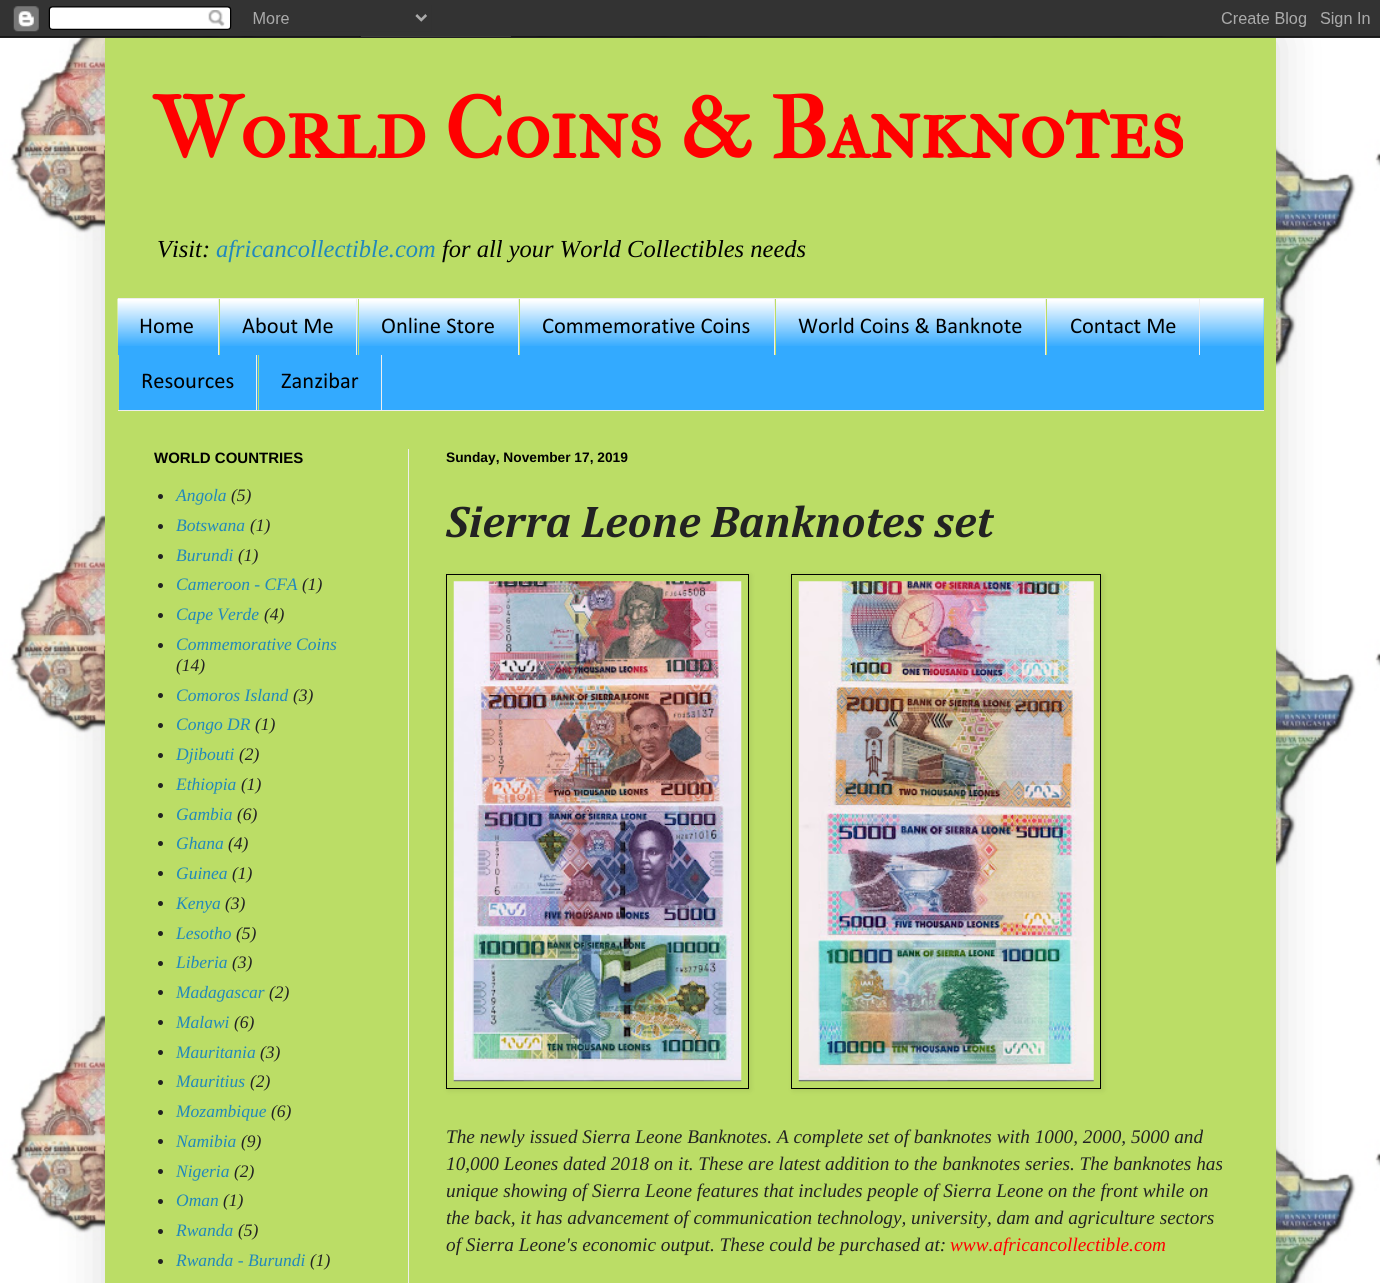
#include <cairo.h>
#include <math.h>
#include <stddef.h>

typedef struct { double x, y; const char *s; } line_t;
typedef struct { double x, y, w, h; unsigned color; } box_t;

static void ink(cairo_t *ctx, unsigned color) {
    cairo_set_source_rgb(ctx, (color >> 16) / 255.0, (color >> 8 & 255) / 255.0, (color & 255) / 255.0);
}

static void round_path(cairo_t *ctx, double x, double y, double w, double h, double r) {
    cairo_new_sub_path(ctx);
    cairo_arc(ctx, x + w - r, y + h - r, r, 0, M_PI / 2);
    cairo_arc(ctx, x + r, y + h - r, r, M_PI / 2, M_PI);
    cairo_arc(ctx, x + r, y + r, r, M_PI, 1.5 * M_PI);
    cairo_arc(ctx, x + w - r, y + r, r, 1.5 * M_PI, 2 * M_PI);
    cairo_close_path(ctx);
}

static void blur_box(cairo_t *ctx, double x, double y, double w, double h, double r, double blur, double alpha) {
    cairo_push_group_with_content(ctx, CAIRO_CONTENT_ALPHA);
    cairo_set_operator(ctx, CAIRO_OPERATOR_SOURCE);
    for (int i = 15; i >= -15 && fmin(w, h) + blur * i / 3 > 0; i -= 2) {
        double e = blur * i / 6;
        cairo_set_source_rgba(ctx, 0, 0, 0, alpha * erfc((i - 1) / 8.5) / 2);
        round_path(ctx, x - e, y - e, w + 2 * e, h + 2 * e, fmax(0, fmin(r + e + blur * .6, fmin(w, h) / 2 + e)));
        cairo_fill(ctx);
    }
    cairo_pattern_t *soft = cairo_pop_group(ctx);
    cairo_mask(ctx, soft);
    cairo_pattern_destroy(soft);
}

static void paste(cairo_t *ctx, const char *path, double x, double y, double w, double h) {
    cairo_surface_t *image = cairo_image_surface_create_from_png(path);
    cairo_save(ctx);
    cairo_set_source_surface(ctx, image, x, y);
    cairo_rectangle(ctx, x, y, w, h);
    cairo_fill(ctx);
    cairo_restore(ctx);
    cairo_surface_destroy(image);
}

int main(void) {
    cairo_surface_t *surface = cairo_image_surface_create(CAIRO_FORMAT_RGB24, 1380, 1283);
    cairo_t *ctx = cairo_create(surface);
    cairo_font_options_t *options = cairo_font_options_create();
    cairo_font_options_set_hint_metrics(options, CAIRO_HINT_METRICS_OFF);
    cairo_font_options_set_hint_style(options, CAIRO_HINT_STYLE_NONE);
    cairo_set_font_options(ctx, options);
    cairo_set_miter_limit(ctx, 4);
    ink(ctx, 0xFFFFFF);
    cairo_paint(ctx);
    paste(ctx, "media/1.png", 0, 36, 1380, 1247);
    ink(ctx, 0x000000);
    blur_box(ctx, 105, 38, 1171, 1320, 0, 25, 0.15);
    paste(ctx, "media/2.png", 0, 0, 1380, 38);
    ink(ctx, 0xBBDD66);
    cairo_rectangle(ctx, 105, 38, 1171, 1245);
    cairo_fill(ctx);
    cairo_select_font_face(ctx, "IM FELL French Canon SC", CAIRO_FONT_SLANT_NORMAL, CAIRO_FONT_WEIGHT_BOLD);
    cairo_set_font_size(ctx, 87.5);
    ink(ctx, 0xFF0000);
    cairo_move_to(ctx, 154, 158);
    cairo_show_text(ctx, "World Coins & Banknotes");
    cairo_select_font_face(ctx, "Liberation Serif", CAIRO_FONT_SLANT_ITALIC, CAIRO_FONT_WEIGHT_NORMAL);
    cairo_set_font_size(ctx, 24.5);
    ink(ctx, 0x000000);
    cairo_move_to(ctx, 157, 257);
    cairo_show_text(ctx, "Visit:");
    ink(ctx, 0x2288BB);
    cairo_move_to(ctx, 216, 257);
    cairo_show_text(ctx, "africancollectible.com");
    ink(ctx, 0x000000);
    cairo_move_to(ctx, 442, 257);
    cairo_show_text(ctx, "for all your World Collectibles needs");
    ink(ctx, 0x33AAFF);
    cairo_rectangle(ctx, 118, 299, 1146, 111);
    cairo_fill(ctx);
    paste(ctx, "media/3.png", 117, 298, 1147, 48);
    {
        static const box_t items[] = {
            {118, 298, 1146, 1, 0xEEEEEE},
            {118, 410, 1146, 1, 0xEEEEEE},
            {218, 299, 1, 56, 0xEEEEEE},
        };
        for (size_t i = 0; i < sizeof items / sizeof *items; i++) {
            ink(ctx, items[i].color);
            cairo_rectangle(ctx, items[i].x, items[i].y, items[i].w, items[i].h);
            cairo_fill(ctx);
        }
    }
    cairo_select_font_face(ctx, "Calibri", CAIRO_FONT_SLANT_NORMAL, CAIRO_FONT_WEIGHT_NORMAL);
    cairo_set_font_size(ctx, 22.5);
    ink(ctx, 0x000000);
    cairo_move_to(ctx, 139, 333);
    cairo_show_text(ctx, "Home");
    ink(ctx, 0xEEEEEE);
    cairo_rectangle(ctx, 356, 299, 1, 56);
    cairo_fill(ctx);
    ink(ctx, 0xBBDD66);
    cairo_rectangle(ctx, 219, 299, 1, 56);
    cairo_fill(ctx);
    ink(ctx, 0x000000);
    cairo_move_to(ctx, 242, 333);
    cairo_show_text(ctx, "About Me");
    ink(ctx, 0xEEEEEE);
    cairo_rectangle(ctx, 518, 299, 1, 56);
    cairo_fill(ctx);
    ink(ctx, 0xBBDD66);
    cairo_rectangle(ctx, 358, 299, 1, 56);
    cairo_fill(ctx);
    ink(ctx, 0x000000);
    cairo_move_to(ctx, 381, 333);
    cairo_show_text(ctx, "Online Store");
    ink(ctx, 0xEEEEEE);
    cairo_rectangle(ctx, 774, 299, 1, 56);
    cairo_fill(ctx);
    ink(ctx, 0xBBDD66);
    cairo_rectangle(ctx, 519, 299, 1, 56);
    cairo_fill(ctx);
    ink(ctx, 0x000000);
    cairo_move_to(ctx, 542, 333);
    cairo_show_text(ctx, "Commemorative Coins");
    ink(ctx, 0xEEEEEE);
    cairo_rectangle(ctx, 1045, 299, 1, 56);
    cairo_fill(ctx);
    ink(ctx, 0xBBDD66);
    cairo_rectangle(ctx, 775, 299, 1, 56);
    cairo_fill(ctx);
    ink(ctx, 0x000000);
    cairo_move_to(ctx, 798, 333);
    cairo_show_text(ctx, "World Coins & Banknote");
    ink(ctx, 0xEEEEEE);
    cairo_rectangle(ctx, 1199, 299, 1, 56);
    cairo_fill(ctx);
    ink(ctx, 0xBBDD66);
    cairo_rectangle(ctx, 1046, 299, 1, 56);
    cairo_fill(ctx);
    ink(ctx, 0x000000);
    cairo_move_to(ctx, 1070, 333);
    cairo_show_text(ctx, "Contact Me");
    ink(ctx, 0xEEEEEE);
    cairo_rectangle(ctx, 256, 355, 1, 55);
    cairo_fill(ctx);
    ink(ctx, 0xBBDD66);
    cairo_rectangle(ctx, 118, 355, 1, 55);
    cairo_fill(ctx);
    ink(ctx, 0x000000);
    cairo_move_to(ctx, 141, 388);
    cairo_show_text(ctx, "Resources");
    ink(ctx, 0xEEEEEE);
    cairo_rectangle(ctx, 381, 355, 1, 55);
    cairo_fill(ctx);
    ink(ctx, 0xBBDD66);
    cairo_rectangle(ctx, 258, 355, 1, 55);
    cairo_fill(ctx);
    ink(ctx, 0x000000);
    cairo_move_to(ctx, 281, 388);
    cairo_show_text(ctx, "Zanzibar");
    ink(ctx, 0xEEEEEE);
    cairo_rectangle(ctx, 408, 449, 1, 834);
    cairo_fill(ctx);
    cairo_select_font_face(ctx, "Liberation Sans", CAIRO_FONT_SLANT_NORMAL, CAIRO_FONT_WEIGHT_BOLD);
    cairo_set_font_size(ctx, 15);
    ink(ctx, 0x000000);
    cairo_move_to(ctx, 154, 463);
    cairo_show_text(ctx, "WORLD COUNTRIES");
    ink(ctx, 0x222222);
    cairo_new_path(ctx);
    cairo_arc(ctx, 160.5, 496.5, 2.5, 0, 2 * M_PI);
    cairo_fill(ctx);
    cairo_select_font_face(ctx, "Liberation Serif", CAIRO_FONT_SLANT_ITALIC, CAIRO_FONT_WEIGHT_NORMAL);
    cairo_set_font_size(ctx, 17.5);
    ink(ctx, 0x2288BB);
    cairo_move_to(ctx, 176, 501);
    cairo_show_text(ctx, "Angola");
    ink(ctx, 0x222222);
    cairo_move_to(ctx, 231, 501);
    cairo_show_text(ctx, "(5)");
    cairo_new_path(ctx);
    cairo_arc(ctx, 160.5, 526.5, 2.5, 0, 2 * M_PI);
    cairo_fill(ctx);
    ink(ctx, 0x2288BB);
    cairo_move_to(ctx, 176, 531);
    cairo_show_text(ctx, "Botswana");
    ink(ctx, 0x222222);
    cairo_move_to(ctx, 250, 531);
    cairo_show_text(ctx, "(1)");
    cairo_new_path(ctx);
    cairo_arc(ctx, 160.5, 556.5, 2.5, 0, 2 * M_PI);
    cairo_fill(ctx);
    ink(ctx, 0x2288BB);
    cairo_move_to(ctx, 176, 561);
    cairo_show_text(ctx, "Burundi");
    ink(ctx, 0x222222);
    cairo_move_to(ctx, 238, 561);
    cairo_show_text(ctx, "(1)");
    cairo_new_path(ctx);
    cairo_arc(ctx, 160.5, 585.5, 2.5, 0, 2 * M_PI);
    cairo_fill(ctx);
    ink(ctx, 0x2288BB);
    cairo_move_to(ctx, 176, 590);
    cairo_show_text(ctx, "Cameroon - CFA");
    ink(ctx, 0x222222);
    cairo_move_to(ctx, 302, 590);
    cairo_show_text(ctx, "(1)");
    cairo_new_path(ctx);
    cairo_arc(ctx, 160.5, 615.5, 2.5, 0, 2 * M_PI);
    cairo_fill(ctx);
    ink(ctx, 0x2288BB);
    cairo_move_to(ctx, 176, 620);
    cairo_show_text(ctx, "Cape Verde");
    ink(ctx, 0x222222);
    cairo_move_to(ctx, 264, 620);
    cairo_show_text(ctx, "(4)");
    cairo_new_path(ctx);
    cairo_arc(ctx, 160.5, 645.5, 2.5, 0, 2 * M_PI);
    cairo_fill(ctx);
    ink(ctx, 0x2288BB);
    cairo_move_to(ctx, 176, 650);
    cairo_show_text(ctx, "Commemorative Coins");
    ink(ctx, 0x222222);
    cairo_move_to(ctx, 176, 671);
    cairo_show_text(ctx, "(14)");
    cairo_new_path(ctx);
    cairo_arc(ctx, 160.5, 695.5, 2.5, 0, 2 * M_PI);
    cairo_fill(ctx);
    ink(ctx, 0x2288BB);
    cairo_move_to(ctx, 176, 701);
    cairo_show_text(ctx, "Comoros Island");
    ink(ctx, 0x222222);
    cairo_move_to(ctx, 293, 701);
    cairo_show_text(ctx, "(3)");
    cairo_new_path(ctx);
    cairo_arc(ctx, 160.5, 725.5, 2.5, 0, 2 * M_PI);
    cairo_fill(ctx);
    ink(ctx, 0x2288BB);
    cairo_move_to(ctx, 176, 730);
    cairo_show_text(ctx, "Congo DR");
    ink(ctx, 0x222222);
    cairo_move_to(ctx, 255, 730);
    cairo_show_text(ctx, "(1)");
    cairo_new_path(ctx);
    cairo_arc(ctx, 160.5, 755.5, 2.5, 0, 2 * M_PI);
    cairo_fill(ctx);
    ink(ctx, 0x2288BB);
    cairo_move_to(ctx, 176, 760);
    cairo_show_text(ctx, "Djibouti");
    ink(ctx, 0x222222);
    cairo_move_to(ctx, 239, 760);
    cairo_show_text(ctx, "(2)");
    cairo_new_path(ctx);
    cairo_arc(ctx, 160.5, 785.5, 2.5, 0, 2 * M_PI);
    cairo_fill(ctx);
    ink(ctx, 0x2288BB);
    cairo_move_to(ctx, 176, 790);
    cairo_show_text(ctx, "Ethiopia");
    ink(ctx, 0x222222);
    cairo_move_to(ctx, 241, 790);
    cairo_show_text(ctx, "(1)");
    cairo_new_path(ctx);
    cairo_arc(ctx, 160.5, 815.5, 2.5, 0, 2 * M_PI);
    cairo_fill(ctx);
    ink(ctx, 0x2288BB);
    cairo_move_to(ctx, 176, 820);
    cairo_show_text(ctx, "Gambia");
    ink(ctx, 0x222222);
    cairo_move_to(ctx, 237, 820);
    cairo_show_text(ctx, "(6)");
    cairo_new_path(ctx);
    cairo_arc(ctx, 160.5, 843.5, 2.5, 0, 2 * M_PI);
    cairo_fill(ctx);
    ink(ctx, 0x2288BB);
    cairo_move_to(ctx, 176, 849);
    cairo_show_text(ctx, "Ghana");
    ink(ctx, 0x222222);
    cairo_move_to(ctx, 228, 849);
    cairo_show_text(ctx, "(4)");
    cairo_new_path(ctx);
    cairo_arc(ctx, 160.5, 873.5, 2.5, 0, 2 * M_PI);
    cairo_fill(ctx);
    ink(ctx, 0x2288BB);
    cairo_move_to(ctx, 176, 879);
    cairo_show_text(ctx, "Guinea");
    ink(ctx, 0x222222);
    cairo_move_to(ctx, 232, 879);
    cairo_show_text(ctx, "(1)");
    cairo_new_path(ctx);
    cairo_arc(ctx, 160.5, 903.5, 2.5, 0, 2 * M_PI);
    cairo_fill(ctx);
    ink(ctx, 0x2288BB);
    cairo_move_to(ctx, 176, 909);
    cairo_show_text(ctx, "Kenya");
    ink(ctx, 0x222222);
    cairo_move_to(ctx, 225, 909);
    cairo_show_text(ctx, "(3)");
    cairo_new_path(ctx);
    cairo_arc(ctx, 160.5, 933.5, 2.5, 0, 2 * M_PI);
    cairo_fill(ctx);
    ink(ctx, 0x2288BB);
    cairo_move_to(ctx, 176, 939);
    cairo_show_text(ctx, "Lesotho");
    ink(ctx, 0x222222);
    cairo_move_to(ctx, 236, 939);
    cairo_show_text(ctx, "(5)");
    cairo_new_path(ctx);
    cairo_arc(ctx, 160.5, 963.5, 2.5, 0, 2 * M_PI);
    cairo_fill(ctx);
    ink(ctx, 0x2288BB);
    cairo_move_to(ctx, 176, 968);
    cairo_show_text(ctx, "Liberia");
    ink(ctx, 0x222222);
    cairo_move_to(ctx, 232, 968);
    cairo_show_text(ctx, "(3)");
    cairo_new_path(ctx);
    cairo_arc(ctx, 160.5, 992.5, 2.5, 0, 2 * M_PI);
    cairo_fill(ctx);
    ink(ctx, 0x2288BB);
    cairo_move_to(ctx, 176, 998);
    cairo_show_text(ctx, "Madagascar");
    ink(ctx, 0x222222);
    cairo_move_to(ctx, 269, 998);
    cairo_show_text(ctx, "(2)");
    cairo_new_path(ctx);
    cairo_arc(ctx, 160.5, 1022.5, 2.5, 0, 2 * M_PI);
    cairo_fill(ctx);
    ink(ctx, 0x2288BB);
    cairo_move_to(ctx, 176, 1028);
    cairo_show_text(ctx, "Malawi");
    ink(ctx, 0x222222);
    cairo_move_to(ctx, 234, 1028);
    cairo_show_text(ctx, "(6)");
    cairo_new_path(ctx);
    cairo_arc(ctx, 160.5, 1052.5, 2.5, 0, 2 * M_PI);
    cairo_fill(ctx);
    ink(ctx, 0x2288BB);
    cairo_move_to(ctx, 176, 1058);
    cairo_show_text(ctx, "Mauritania");
    ink(ctx, 0x222222);
    cairo_move_to(ctx, 260, 1058);
    cairo_show_text(ctx, "(3)");
    cairo_new_path(ctx);
    cairo_arc(ctx, 160.5, 1082.5, 2.5, 0, 2 * M_PI);
    cairo_fill(ctx);
    ink(ctx, 0x2288BB);
    cairo_move_to(ctx, 176, 1087);
    cairo_show_text(ctx, "Mauritius");
    ink(ctx, 0x222222);
    cairo_move_to(ctx, 250, 1087);
    cairo_show_text(ctx, "(2)");
    cairo_new_path(ctx);
    cairo_arc(ctx, 160.5, 1112.5, 2.5, 0, 2 * M_PI);
    cairo_fill(ctx);
    ink(ctx, 0x2288BB);
    cairo_move_to(ctx, 176, 1117);
    cairo_show_text(ctx, "Mozambique");
    ink(ctx, 0x222222);
    cairo_move_to(ctx, 271, 1117);
    cairo_show_text(ctx, "(6)");
    cairo_new_path(ctx);
    cairo_arc(ctx, 160.5, 1141.5, 2.5, 0, 2 * M_PI);
    cairo_fill(ctx);
    ink(ctx, 0x2288BB);
    cairo_move_to(ctx, 176, 1147);
    cairo_show_text(ctx, "Namibia");
    ink(ctx, 0x222222);
    cairo_move_to(ctx, 241, 1147);
    cairo_show_text(ctx, "(9)");
    cairo_new_path(ctx);
    cairo_arc(ctx, 160.5, 1171.5, 2.5, 0, 2 * M_PI);
    cairo_fill(ctx);
    ink(ctx, 0x2288BB);
    cairo_move_to(ctx, 176, 1177);
    cairo_show_text(ctx, "Nigeria");
    ink(ctx, 0x222222);
    cairo_move_to(ctx, 234, 1177);
    cairo_show_text(ctx, "(2)");
    cairo_new_path(ctx);
    cairo_arc(ctx, 160.5, 1201.5, 2.5, 0, 2 * M_PI);
    cairo_fill(ctx);
    ink(ctx, 0x2288BB);
    cairo_move_to(ctx, 176, 1206);
    cairo_show_text(ctx, "Oman");
    ink(ctx, 0x222222);
    cairo_move_to(ctx, 223, 1206);
    cairo_show_text(ctx, "(1)");
    cairo_new_path(ctx);
    cairo_arc(ctx, 160.5, 1231.5, 2.5, 0, 2 * M_PI);
    cairo_fill(ctx);
    ink(ctx, 0x2288BB);
    cairo_move_to(ctx, 176, 1236);
    cairo_show_text(ctx, "Rwanda");
    ink(ctx, 0x222222);
    cairo_move_to(ctx, 238, 1236);
    cairo_show_text(ctx, "(5)");
    cairo_new_path(ctx);
    cairo_arc(ctx, 160.5, 1261.5, 2.5, 0, 2 * M_PI);
    cairo_fill(ctx);
    ink(ctx, 0x2288BB);
    cairo_move_to(ctx, 176, 1266);
    cairo_show_text(ctx, "Rwanda - Burundi");
    ink(ctx, 0x222222);
    cairo_move_to(ctx, 310, 1266);
    cairo_show_text(ctx, "(1)");
    cairo_select_font_face(ctx, "Liberation Sans", CAIRO_FONT_SLANT_NORMAL, CAIRO_FONT_WEIGHT_BOLD);
    cairo_set_font_size(ctx, 13.75);
    ink(ctx, 0x000000);
    cairo_move_to(ctx, 446, 462);
    cairo_show_text(ctx, "Sunday, November 17, 2019");
    cairo_select_font_face(ctx, "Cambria", CAIRO_FONT_SLANT_ITALIC, CAIRO_FONT_WEIGHT_BOLD);
    cairo_set_font_size(ctx, 45);
    ink(ctx, 0x222222);
    cairo_move_to(ctx, 446, 537);
    cairo_show_text(ctx, "Sierra Leone Banknotes set");
    cairo_save(ctx);
    cairo_set_fill_rule(ctx, CAIRO_FILL_RULE_EVEN_ODD);
    cairo_new_path(ctx);
    cairo_move_to(ctx, 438, 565);
    cairo_line_to(ctx, 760, 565);
    cairo_line_to(ctx, 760, 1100);
    cairo_line_to(ctx, 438, 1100);
    cairo_close_path(ctx);
    cairo_move_to(ctx, 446, 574);
    cairo_line_to(ctx, 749, 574);
    cairo_line_to(ctx, 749, 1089);
    cairo_line_to(ctx, 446, 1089);
    cairo_close_path(ctx);
    cairo_clip(ctx);
    ink(ctx, 0x000000);
    blur_box(ctx, 448, 575, 302, 515, 0, 3, 0.1);
    cairo_restore(ctx);
    cairo_rectangle(ctx, 446.5, 574.5, 302, 514);
    ink(ctx, 0x000000);
    cairo_set_line_width(ctx, 1);
    cairo_stroke(ctx);
    paste(ctx, "media/4.png", 453, 581, 289, 501);
    cairo_save(ctx);
    cairo_set_fill_rule(ctx, CAIRO_FILL_RULE_EVEN_ODD);
    cairo_new_path(ctx);
    cairo_move_to(ctx, 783, 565);
    cairo_line_to(ctx, 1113, 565);
    cairo_line_to(ctx, 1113, 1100);
    cairo_line_to(ctx, 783, 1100);
    cairo_close_path(ctx);
    cairo_move_to(ctx, 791, 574);
    cairo_line_to(ctx, 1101, 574);
    cairo_line_to(ctx, 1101, 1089);
    cairo_line_to(ctx, 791, 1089);
    cairo_close_path(ctx);
    cairo_clip(ctx);
    ink(ctx, 0x000000);
    blur_box(ctx, 793, 575, 310, 515, 0, 3, 0.1);
    cairo_restore(ctx);
    cairo_rectangle(ctx, 791.5, 574.5, 309, 514);
    cairo_stroke(ctx);
    paste(ctx, "media/5.png", 798, 581, 296, 501);
    cairo_select_font_face(ctx, "Liberation Serif", CAIRO_FONT_SLANT_ITALIC, CAIRO_FONT_WEIGHT_NORMAL);
    cairo_set_font_size(ctx, 19.25);
    ink(ctx, 0x222222);
    {
        static const line_t items[] = {
            {446, 1143, "The newly issued Sierra Leone Banknotes. A complete set of banknotes with 1000, 2000, 5000 and"},
            {446, 1170, "10,000 Leones dated 2018 on it. These are latest addition to the banknotes series. The banknotes has"},
            {446, 1197, "unique showing of Sierra Leone features that includes people of Sierra Leone on the front while on"},
            {446, 1224, "the back, it has advancement of communication technology, university, dam and agriculture sectors"},
            {446, 1251, "of Sierra Leone's economic output. These could be purchased at:"},
        };
        for (size_t i = 0; i < sizeof items / sizeof *items; i++) {
            cairo_move_to(ctx, items[i].x, items[i].y);
            cairo_show_text(ctx, items[i].s);
        }
    }
    ink(ctx, 0xFF0000);
    cairo_move_to(ctx, 950, 1251);
    cairo_show_text(ctx, "www.africancollectible.com");
    cairo_surface_write_to_png(surface, "image.png");
    cairo_font_options_destroy(options);
    cairo_destroy(ctx);
    cairo_surface_destroy(surface);
    return 0;
}
